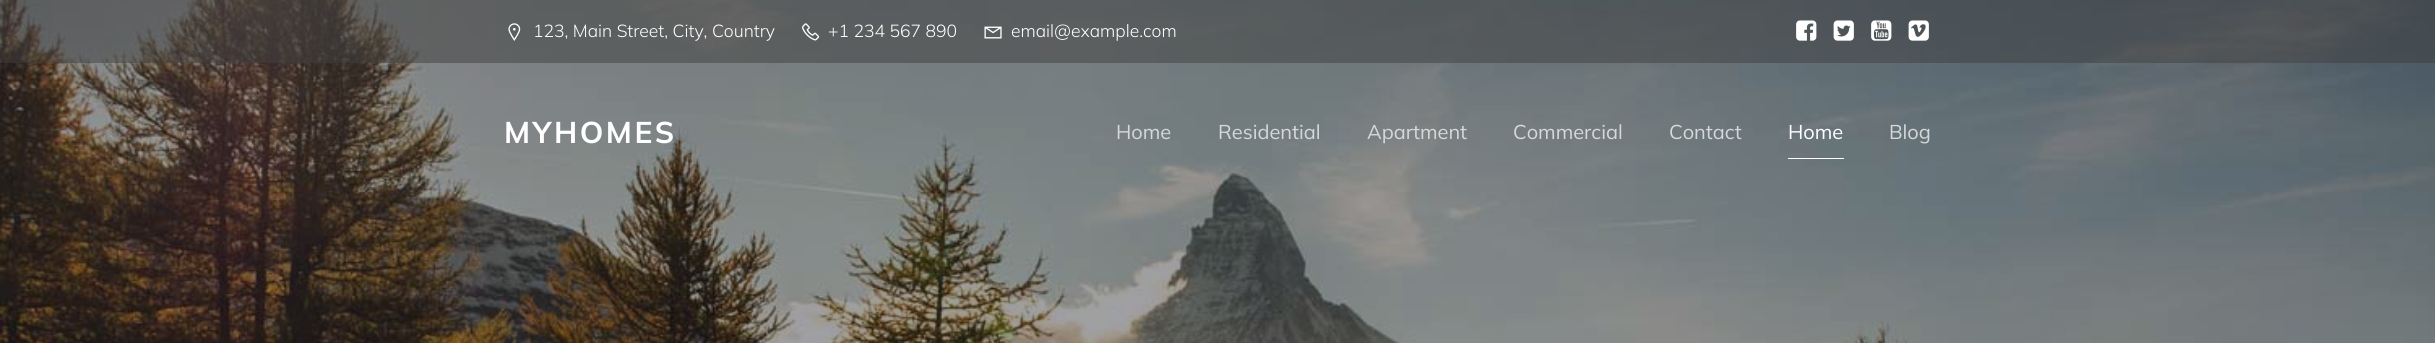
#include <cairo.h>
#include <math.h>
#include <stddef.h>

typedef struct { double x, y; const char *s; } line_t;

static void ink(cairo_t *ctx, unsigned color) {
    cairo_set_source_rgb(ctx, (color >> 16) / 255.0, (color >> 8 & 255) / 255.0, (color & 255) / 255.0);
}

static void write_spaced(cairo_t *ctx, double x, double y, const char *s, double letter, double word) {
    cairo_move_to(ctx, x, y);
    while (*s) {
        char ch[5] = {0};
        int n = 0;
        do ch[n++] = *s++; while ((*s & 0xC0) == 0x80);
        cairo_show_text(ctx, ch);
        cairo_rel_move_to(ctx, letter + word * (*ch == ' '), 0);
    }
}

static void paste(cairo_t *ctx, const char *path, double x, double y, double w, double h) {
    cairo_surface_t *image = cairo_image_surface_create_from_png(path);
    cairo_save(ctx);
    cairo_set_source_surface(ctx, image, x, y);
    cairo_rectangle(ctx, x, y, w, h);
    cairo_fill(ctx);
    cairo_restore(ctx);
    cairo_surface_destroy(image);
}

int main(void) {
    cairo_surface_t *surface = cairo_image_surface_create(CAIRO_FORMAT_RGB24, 2435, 343);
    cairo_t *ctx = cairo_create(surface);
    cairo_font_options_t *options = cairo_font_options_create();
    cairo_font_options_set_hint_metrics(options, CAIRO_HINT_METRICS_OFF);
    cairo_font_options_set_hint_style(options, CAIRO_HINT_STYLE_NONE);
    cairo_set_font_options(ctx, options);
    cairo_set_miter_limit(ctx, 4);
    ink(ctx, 0xFFFFFF);
    cairo_paint(ctx);
    paste(ctx, "media/1.png", 0, 0, 2435, 343);
    cairo_set_source_rgba(ctx, 0.251, 0.255, 0.255, 0.5);
    cairo_rectangle(ctx, 0, 0, 2435, 63);
    cairo_fill(ctx);
    paste(ctx, "media/2.png", 508, 23, 13, 18);
    cairo_select_font_face(ctx, "Mulish Light", CAIRO_FONT_SLANT_NORMAL, CAIRO_FONT_WEIGHT_NORMAL);
    cairo_set_font_size(ctx, 17.5);
    ink(ctx, 0xFFFFFF);
    cairo_move_to(ctx, 533, 37);
    cairo_show_text(ctx, "123, Main Street, City, Country");
    paste(ctx, "media/3.png", 802, 23, 18, 18);
    cairo_move_to(ctx, 828, 37);
    cairo_show_text(ctx, "+1 234 567 890");
    paste(ctx, "media/4.png", 984, 26, 18, 13);
    cairo_move_to(ctx, 1011, 37);
    cairo_show_text(ctx, "email@example.com");
    paste(ctx, "media/5.png", 1796, 20, 21, 21);
    paste(ctx, "media/6.png", 1833, 20, 21, 21);
    paste(ctx, "media/7.png", 1871, 20, 21, 21);
    paste(ctx, "media/8.png", 1908, 20, 21, 21);
    cairo_select_font_face(ctx, "Mulish", CAIRO_FONT_SLANT_NORMAL, CAIRO_FONT_WEIGHT_BOLD);
    cairo_set_font_size(ctx, 30);
    write_spaced(ctx, 504, 143, "MYHOMES", 2.5, 0);
    cairo_select_font_face(ctx, "Mulish", CAIRO_FONT_SLANT_NORMAL, CAIRO_FONT_WEIGHT_NORMAL);
    cairo_set_font_size(ctx, 20);
    ink(ctx, 0xD6D8D9);
    {
        static const line_t items[] = {
            {1116, 139, "Home"},
            {1218, 139, "Residential"},
            {1367, 139, "Apartment"},
            {1513, 139, "Commercial"},
            {1669, 139, "Contact"},
        };
        for (size_t i = 0; i < sizeof items / sizeof *items; i++) {
            cairo_move_to(ctx, items[i].x, items[i].y);
            cairo_show_text(ctx, items[i].s);
        }
    }
    ink(ctx, 0xFFFFFF);
    cairo_move_to(ctx, 1788, 139);
    cairo_show_text(ctx, "Home");
    cairo_rectangle(ctx, 1788, 158, 56, 1);
    cairo_fill(ctx);
    ink(ctx, 0xD6D8D9);
    cairo_move_to(ctx, 1889, 139);
    cairo_show_text(ctx, "Blog");
    cairo_surface_write_to_png(surface, "image.png");
    cairo_font_options_destroy(options);
    cairo_destroy(ctx);
    cairo_surface_destroy(surface);
    return 0;
}
